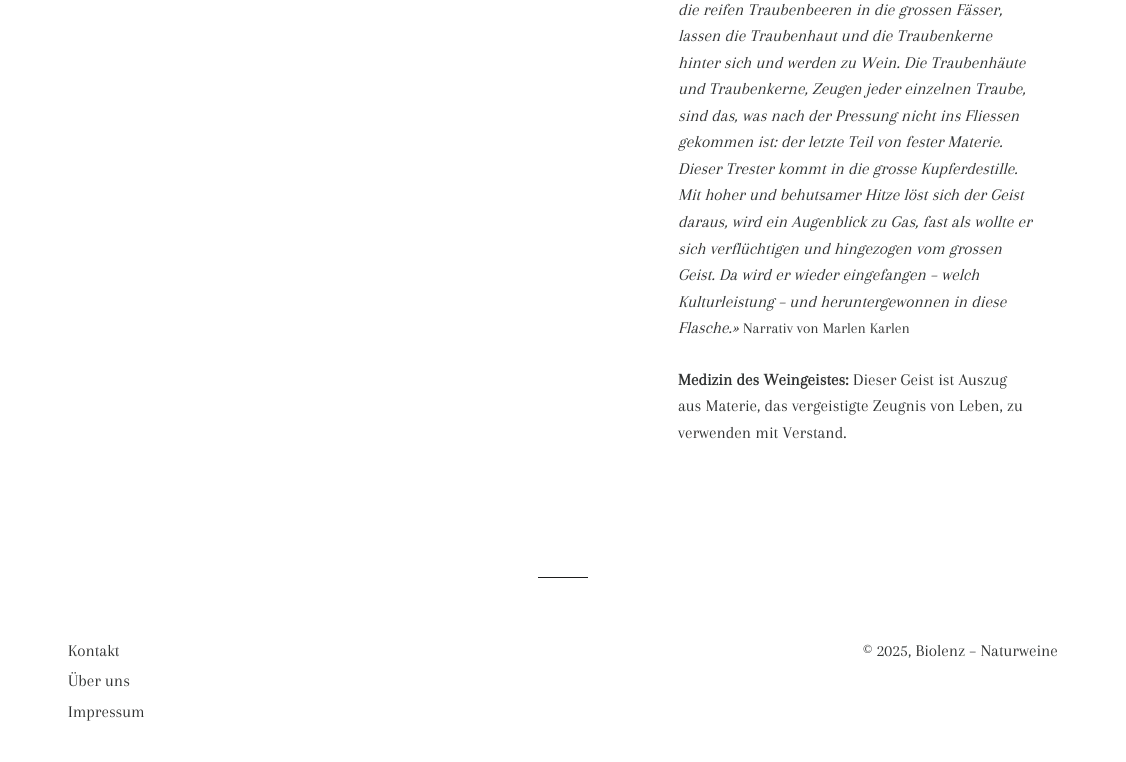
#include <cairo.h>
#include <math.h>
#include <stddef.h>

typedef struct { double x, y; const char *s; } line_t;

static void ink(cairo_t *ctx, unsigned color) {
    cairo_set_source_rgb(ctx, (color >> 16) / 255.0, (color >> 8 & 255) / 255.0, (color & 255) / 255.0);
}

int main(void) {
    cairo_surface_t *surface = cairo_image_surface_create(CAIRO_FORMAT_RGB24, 1126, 762);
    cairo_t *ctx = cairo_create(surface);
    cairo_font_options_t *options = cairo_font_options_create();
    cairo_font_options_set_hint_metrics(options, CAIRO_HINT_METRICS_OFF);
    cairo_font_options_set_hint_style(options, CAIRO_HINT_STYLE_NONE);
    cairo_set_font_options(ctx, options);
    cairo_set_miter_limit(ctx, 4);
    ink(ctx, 0xFFFFFF);
    cairo_paint(ctx);
    cairo_select_font_face(ctx, "Arapey", CAIRO_FONT_SLANT_ITALIC, CAIRO_FONT_WEIGHT_NORMAL);
    cairo_set_font_size(ctx, 17);
    ink(ctx, 0x303232);
    {
        static const line_t items[] = {
            {678, 15, "die reifen Traubenbeeren in die grossen Fässer,"},
            {678, 41, "lassen die Traubenhaut und die Traubenkerne"},
            {678, 68, "hinter sich und werden zu Wein. Die Traubenhäute"},
            {678, 94, "und Traubenkerne, Zeugen jeder einzelnen Traube,"},
            {678, 121, "sind das, was nach der Pressung nicht ins Fliessen"},
            {678, 147, "gekommen ist: der letzte Teil von fester Materie."},
            {678, 174, "Dieser Trester kommt in die grosse Kupferdestille."},
            {678, 200, "Mit hoher und behutsamer Hitze löst sich der Geist"},
            {678, 227, "daraus, wird ein Augenblick zu Gas, fast als wollte er"},
            {678, 254, "sich verflüchtigen und hingezogen vom grossen"},
            {678, 280, "Geist. Da wird er wieder eingefangen – welch"},
            {678, 307, "Kulturleistung – und heruntergewonnen in diese"},
            {678, 333, "Flasche.»"},
        };
        for (size_t i = 0; i < sizeof items / sizeof *items; i++) {
            cairo_move_to(ctx, items[i].x, items[i].y);
            cairo_show_text(ctx, items[i].s);
        }
    }
    cairo_select_font_face(ctx, "Arapey", CAIRO_FONT_SLANT_NORMAL, CAIRO_FONT_WEIGHT_NORMAL);
    cairo_set_font_size(ctx, 15.25);
    cairo_move_to(ctx, 743, 333);
    cairo_show_text(ctx, "Narrativ von Marlen Karlen");
    cairo_select_font_face(ctx, "Arapey", CAIRO_FONT_SLANT_NORMAL, CAIRO_FONT_WEIGHT_BOLD);
    cairo_set_font_size(ctx, 17);
    cairo_move_to(ctx, 678, 385);
    cairo_show_text(ctx, "Medizin des Weingeistes:");
    cairo_select_font_face(ctx, "Arapey", CAIRO_FONT_SLANT_NORMAL, CAIRO_FONT_WEIGHT_NORMAL);
    {
        static const line_t items[] = {
            {853, 385, "Dieser Geist ist Auszug"},
            {678, 411, "aus Materie, das vergeistigte Zeugnis von Leben, zu"},
            {678, 438, "verwenden mit Verstand."},
        };
        for (size_t i = 0; i < sizeof items / sizeof *items; i++) {
            cairo_move_to(ctx, items[i].x, items[i].y);
            cairo_show_text(ctx, items[i].s);
        }
    }
    ink(ctx, 0x1C1D1D);
    cairo_rectangle(ctx, 538, 577, 50, 1);
    cairo_fill(ctx);
    ink(ctx, 0x303232);
    {
        static const line_t items[] = {
            {68, 656, "Kontakt"},
            {68, 686, "Über uns"},
            {68, 717, "Impressum"},
            {863, 656, "© 2025, Biolenz – Naturweine"},
        };
        for (size_t i = 0; i < sizeof items / sizeof *items; i++) {
            cairo_move_to(ctx, items[i].x, items[i].y);
            cairo_show_text(ctx, items[i].s);
        }
    }
    cairo_surface_write_to_png(surface, "image.png");
    cairo_font_options_destroy(options);
    cairo_destroy(ctx);
    cairo_surface_destroy(surface);
    return 0;
}
